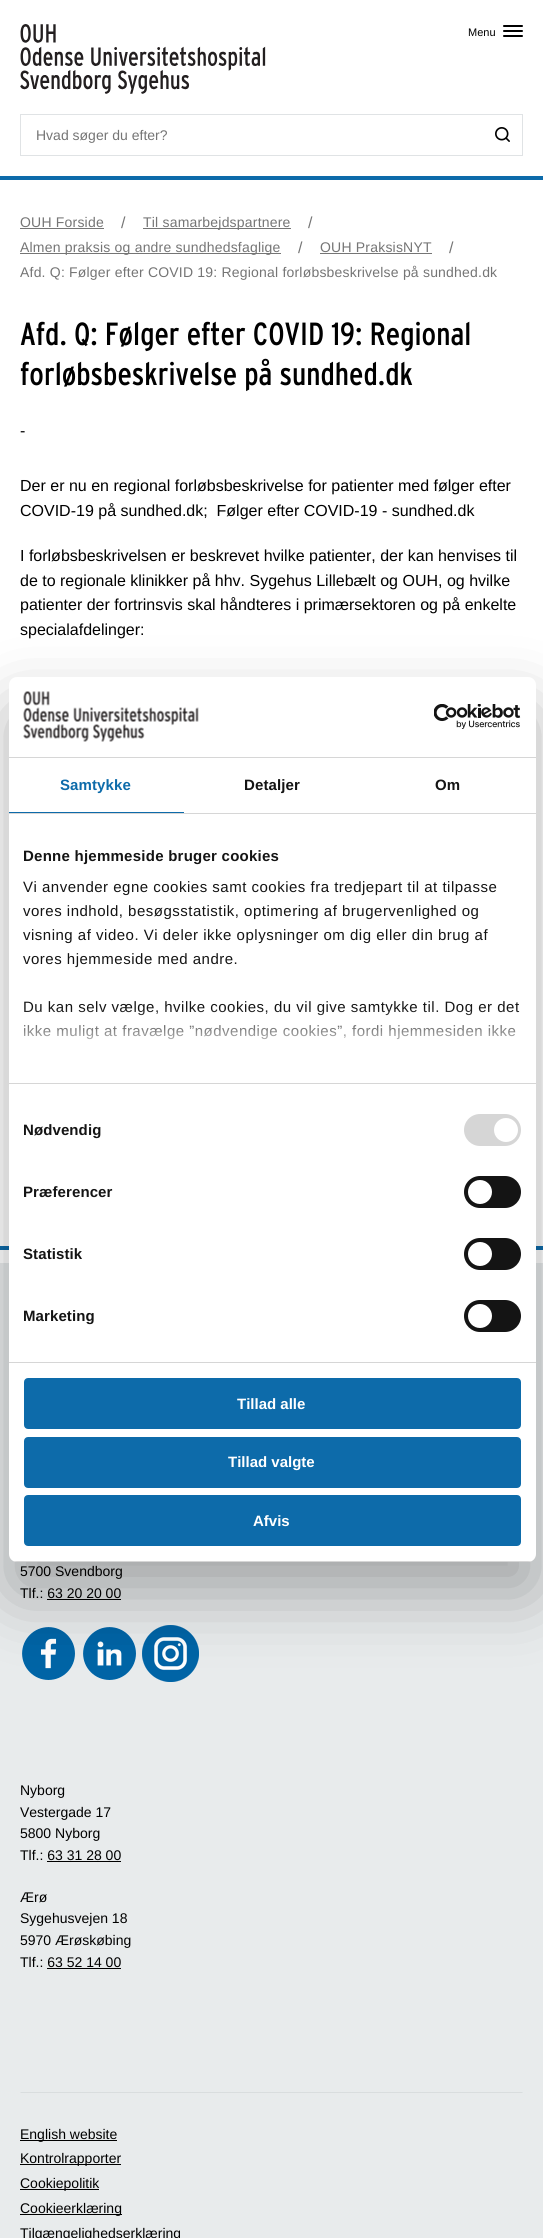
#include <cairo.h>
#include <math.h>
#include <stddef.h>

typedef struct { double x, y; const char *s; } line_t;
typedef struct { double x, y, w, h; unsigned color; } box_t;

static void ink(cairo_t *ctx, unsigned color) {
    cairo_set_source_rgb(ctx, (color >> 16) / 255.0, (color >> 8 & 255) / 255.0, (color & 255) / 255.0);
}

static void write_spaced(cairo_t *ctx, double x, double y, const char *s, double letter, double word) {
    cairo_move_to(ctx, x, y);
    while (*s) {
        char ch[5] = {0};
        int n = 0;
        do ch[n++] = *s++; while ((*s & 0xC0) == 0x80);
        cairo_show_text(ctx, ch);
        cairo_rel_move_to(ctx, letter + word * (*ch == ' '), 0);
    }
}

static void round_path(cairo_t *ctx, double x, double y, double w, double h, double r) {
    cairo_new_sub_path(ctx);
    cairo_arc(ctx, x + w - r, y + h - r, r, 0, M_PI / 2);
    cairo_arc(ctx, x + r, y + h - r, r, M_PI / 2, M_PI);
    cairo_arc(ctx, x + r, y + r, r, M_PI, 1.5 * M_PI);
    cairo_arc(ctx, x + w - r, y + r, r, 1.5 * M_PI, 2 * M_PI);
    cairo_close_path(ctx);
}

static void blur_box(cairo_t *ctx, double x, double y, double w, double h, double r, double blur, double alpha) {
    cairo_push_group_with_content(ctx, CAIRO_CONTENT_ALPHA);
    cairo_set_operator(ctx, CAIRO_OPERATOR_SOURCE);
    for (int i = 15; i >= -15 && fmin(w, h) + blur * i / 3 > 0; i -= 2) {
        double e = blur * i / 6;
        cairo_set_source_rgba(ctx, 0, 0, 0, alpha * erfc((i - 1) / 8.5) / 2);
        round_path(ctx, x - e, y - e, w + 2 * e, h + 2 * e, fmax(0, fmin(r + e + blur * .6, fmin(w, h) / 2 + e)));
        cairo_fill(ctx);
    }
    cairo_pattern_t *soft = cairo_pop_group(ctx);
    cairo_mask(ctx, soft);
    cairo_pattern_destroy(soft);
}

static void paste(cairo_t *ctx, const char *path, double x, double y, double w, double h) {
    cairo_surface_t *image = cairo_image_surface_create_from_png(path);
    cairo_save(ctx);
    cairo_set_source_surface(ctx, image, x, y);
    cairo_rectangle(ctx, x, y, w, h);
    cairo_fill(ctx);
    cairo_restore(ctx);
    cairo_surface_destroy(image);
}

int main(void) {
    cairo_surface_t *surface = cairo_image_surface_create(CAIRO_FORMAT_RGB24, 543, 2238);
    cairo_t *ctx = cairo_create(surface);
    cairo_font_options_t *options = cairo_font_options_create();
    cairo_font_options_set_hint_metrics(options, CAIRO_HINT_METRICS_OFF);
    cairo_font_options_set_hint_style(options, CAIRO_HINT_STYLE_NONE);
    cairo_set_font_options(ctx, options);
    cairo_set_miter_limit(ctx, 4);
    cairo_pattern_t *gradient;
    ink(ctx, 0xFFFFFF);
    cairo_paint(ctx);
    ink(ctx, 0x0D6BAA);
    cairo_rectangle(ctx, 0, 176, 543, 4);
    cairo_fill(ctx);
    paste(ctx, "media/1.png", 20, 24, 246, 70);
    cairo_select_font_face(ctx, "Liberation Sans", CAIRO_FONT_SLANT_NORMAL, CAIRO_FONT_WEIGHT_NORMAL);
    cairo_set_font_size(ctx, 11);
    ink(ctx, 0x000000);
    cairo_move_to(ctx, 468, 36);
    cairo_show_text(ctx, "Menu");
    round_path(ctx, 503, 30, 20, 2, 1);
    cairo_fill(ctx);
    round_path(ctx, 503, 25, 20, 2, 1);
    cairo_fill(ctx);
    round_path(ctx, 503, 35, 20, 2, 1);
    cairo_fill(ctx);
    cairo_rectangle(ctx, 20.5, 114.5, 502, 41);
    ink(ctx, 0xE0E3E5);
    cairo_set_line_width(ctx, 1);
    cairo_stroke(ctx);
    cairo_set_font_size(ctx, 14);
    ink(ctx, 0x757575);
    cairo_move_to(ctx, 36, 140);
    cairo_show_text(ctx, "Hvad søger du efter?");
    paste(ctx, "media/2.png", 495, 127, 15, 15);
    write_spaced(ctx, 20, 227, "OUH Forside", 0.2, 0);
    cairo_rectangle(ctx, 20, 228, 84, 1);
    cairo_fill(ctx);
    cairo_set_font_size(ctx, 16);
    cairo_move_to(ctx, 121, 228);
    cairo_show_text(ctx, "/");
    cairo_rectangle(ctx, 143, 228, 148, 1);
    cairo_fill(ctx);
    cairo_set_font_size(ctx, 14);
    write_spaced(ctx, 143, 227, "Til samarbejdspartnere", 0.2, 0);
    cairo_set_font_size(ctx, 16);
    cairo_move_to(ctx, 308, 228);
    cairo_show_text(ctx, "/");
    cairo_rectangle(ctx, 20, 253, 261, 1);
    cairo_fill(ctx);
    cairo_set_font_size(ctx, 14);
    write_spaced(ctx, 20, 252, "Almen praksis og andre sundhedsfaglige", 0.2, 0);
    cairo_set_font_size(ctx, 16);
    cairo_move_to(ctx, 298, 253);
    cairo_show_text(ctx, "/");
    cairo_set_font_size(ctx, 14);
    write_spaced(ctx, 320, 252, "OUH PraksisNYT", 0.2, 0);
    cairo_rectangle(ctx, 320, 253, 112, 1);
    cairo_fill(ctx);
    cairo_set_font_size(ctx, 16);
    cairo_move_to(ctx, 449, 253);
    cairo_show_text(ctx, "/");
    cairo_set_font_size(ctx, 14);
    write_spaced(ctx, 20, 277, "Afd. Q: Følger efter COVID 19: Regional forløbsbeskrivelse på sundhed.dk", 0.2, 0);
    cairo_select_font_face(ctx, "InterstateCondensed", CAIRO_FONT_SLANT_NORMAL, CAIRO_FONT_WEIGHT_NORMAL);
    cairo_set_font_size(ctx, 32);
    ink(ctx, 0x000000);
    cairo_move_to(ctx, 20, 345);
    cairo_show_text(ctx, "Afd. Q: Følger efter COVID 19: Regional");
    cairo_move_to(ctx, 20, 385);
    cairo_show_text(ctx, "forløbsbeskrivelse på sundhed.dk");
    cairo_select_font_face(ctx, "Liberation Sans", CAIRO_FONT_SLANT_NORMAL, CAIRO_FONT_WEIGHT_NORMAL);
    cairo_set_font_size(ctx, 16);
    {
        static const line_t items[] = {
            {20, 436, "-"},
            {20, 491, "Der er nu en regional forløbsbeskrivelse for patienter med følger efter"},
            {20, 516, "COVID-19 på sundhed.dk;  Følger efter COVID-19 - sundhed.dk"},
            {20, 561, "I forløbsbeskrivelsen er beskrevet hvilke patienter, der kan henvises til"},
            {20, 586, "de to regionale klinikker på hhv. Sygehus Lillebælt og OUH, og hvilke"},
            {20, 610, "patienter der fortrinsvis skal håndteres i primærsektoren og på enkelte"},
            {20, 635, "specialafdelinger:"},
        };
        for (size_t i = 0; i < sizeof items / sizeof *items; i++) {
            cairo_move_to(ctx, items[i].x, items[i].y);
            cairo_show_text(ctx, items[i].s);
        }
    }
    {
        static const box_t items[] = {
            {0, 1246, 543, 4, 0x0D6BAA},
            {0, 1263, 543, 975, 0xE8EBEC},
            {47, 1599, 74, 1, 0x000000},
        };
        for (size_t i = 0; i < sizeof items / sizeof *items; i++) {
            ink(ctx, items[i].color);
            cairo_rectangle(ctx, items[i].x, items[i].y, items[i].w, items[i].h);
            cairo_fill(ctx);
        }
    }
    paste(ctx, "media/5.png", 22, 1627, 53, 53);
    paste(ctx, "media/6.png", 83, 1627, 53, 53);
    paste(ctx, "media/7.png", 142, 1625, 57, 57);
    ink(ctx, 0x000000);
    blur_box(ctx, 9, 709, 527, 885, 8, 34, 0.3);
    ink(ctx, 0xFFFFFF);
    round_path(ctx, 9, 677, 527, 885, 8);
    cairo_fill(ctx);
    ink(ctx, 0xD6D6D6);
    cairo_rectangle(ctx, 9, 757, 527, 1);
    cairo_fill(ctx);
    paste(ctx, "media/3.png", 23, 691, 176, 51);
    paste(ctx, "media/4.png", 434, 704, 87, 25);
    cairo_rectangle(ctx, 9, 813, 527, 1);
    cairo_fill(ctx);
    ink(ctx, 0x0D6BAA);
    cairo_rectangle(ctx, 9, 812, 175, 1);
    cairo_fill(ctx);
    cairo_select_font_face(ctx, "Liberation Sans", CAIRO_FONT_SLANT_NORMAL, CAIRO_FONT_WEIGHT_BOLD);
    cairo_set_font_size(ctx, 15);
    write_spaced(ctx, 60, 790, "Samtykke", 0.1, 0);
    ink(ctx, 0x141414);
    write_spaced(ctx, 244, 790, "Detaljer", 0.1, 0);
    write_spaced(ctx, 435, 790, "Om", 0.1, 0);
    ink(ctx, 0xD6D6D6);
    cairo_rectangle(ctx, 9, 1083, 527, 1);
    cairo_fill(ctx);
    ink(ctx, 0x141414);
    write_spaced(ctx, 23, 861, "Denne hjemmeside bruger cookies", 0.25, 0);
    cairo_select_font_face(ctx, "Liberation Sans", CAIRO_FONT_SLANT_NORMAL, CAIRO_FONT_WEIGHT_NORMAL);
    {
        static const line_t items[] = {
            {23, 892, "Vi anvender egne cookies samt cookies fra tredjepart til at tilpasse"},
            {23, 916, "vores indhold, besøgsstatistik, optimering af brugervenlighed og"},
            {23, 940, "visning af video. Vi deler ikke oplysninger om dig eller din brug af"},
            {23, 964, "vores hjemmeside med andre."},
            {23, 1012, "Du kan selv vælge, hvilke cookies, du vil give samtykke til. Dog er det"},
            {23, 1036, "ikke muligt at fravælge ”nødvendige cookies”, fordi hjemmesiden ikke"},
        };
        for (size_t i = 0; i < sizeof items / sizeof *items; i++) {
            write_spaced(ctx, items[i].x, items[i].y, items[i].s, 0.5, 0);
        }
    }
    gradient = cairo_pattern_create_linear(266, 1083, 266, 1008);
    cairo_pattern_add_color_stop_rgba(gradient, 0, 1, 1, 1, 1);
    cairo_pattern_add_color_stop_rgba(gradient, 0.5, 1, 1, 1, 0.8);
    cairo_pattern_add_color_stop_rgba(gradient, 1, 1, 1, 1, 0);
    cairo_set_source(ctx, gradient);
    cairo_pattern_destroy(gradient);
    cairo_rectangle(ctx, 24, 1009, 495, 31);
    cairo_fill(ctx);
    ink(ctx, 0xD6D6D6);
    cairo_rectangle(ctx, 9, 1362, 527, 1);
    cairo_fill(ctx);
    cairo_select_font_face(ctx, "Liberation Sans", CAIRO_FONT_SLANT_NORMAL, CAIRO_FONT_WEIGHT_BOLD);
    ink(ctx, 0x141414);
    write_spaced(ctx, 23, 1135, "Nødvendig", 0.1, 0);
    ink(ctx, 0xD6D6D6);
    round_path(ctx, 464, 1114, 57, 32, 16);
    cairo_fill(ctx);
    ink(ctx, 0xFFFFFF);
    cairo_arc(ctx, 506, 1130, 12, 0, 2 * M_PI);
    cairo_fill(ctx);
    ink(ctx, 0x141414);
    write_spaced(ctx, 23, 1197, "Præferencer", 0.1, 0);
    round_path(ctx, 464, 1176, 57, 32, 16);
    cairo_fill(ctx);
    ink(ctx, 0xFFFFFF);
    cairo_arc(ctx, 480, 1192, 12, 0, 2 * M_PI);
    cairo_fill(ctx);
    ink(ctx, 0x141414);
    write_spaced(ctx, 23, 1259, "Statistik", 0.1, 0);
    round_path(ctx, 464, 1238, 57, 32, 16);
    cairo_fill(ctx);
    ink(ctx, 0xFFFFFF);
    cairo_arc(ctx, 480, 1254, 12, 0, 2 * M_PI);
    cairo_fill(ctx);
    ink(ctx, 0x141414);
    write_spaced(ctx, 23, 1321, "Marketing", 0.1, 0);
    round_path(ctx, 464, 1300, 57, 32, 16);
    cairo_fill(ctx);
    ink(ctx, 0xFFFFFF);
    cairo_arc(ctx, 480, 1316, 12, 0, 2 * M_PI);
    cairo_fill(ctx);
    cairo_save(ctx);
    round_path(ctx, 9, 677, 527, 885, 8);
    cairo_clip(ctx);
    ink(ctx, 0xD6D6D6);
    cairo_rectangle(ctx, 9, 1561, 527, 1);
    cairo_fill(ctx);
    cairo_restore(ctx);
    ink(ctx, 0x0D6BAA);
    round_path(ctx, 25, 1379, 495, 49, 3);
    cairo_fill_preserve(ctx);
    cairo_set_line_width(ctx, 2);
    cairo_stroke(ctx);
    ink(ctx, 0xFFFFFF);
    cairo_move_to(ctx, 237, 1409);
    cairo_show_text(ctx, "Tillad alle");
    ink(ctx, 0x0D6BAA);
    round_path(ctx, 25, 1438, 495, 49, 3);
    cairo_fill_preserve(ctx);
    cairo_stroke(ctx);
    ink(ctx, 0xFFFFFF);
    cairo_move_to(ctx, 228, 1467);
    cairo_show_text(ctx, "Tillad valgte");
    ink(ctx, 0x0D6BAA);
    round_path(ctx, 25, 1496, 495, 49, 3);
    cairo_fill_preserve(ctx);
    cairo_stroke(ctx);
    ink(ctx, 0xFFFFFF);
    cairo_move_to(ctx, 253, 1526);
    cairo_show_text(ctx, "Afvis");
    cairo_select_font_face(ctx, "Liberation Sans", CAIRO_FONT_SLANT_NORMAL, CAIRO_FONT_WEIGHT_NORMAL);
    cairo_set_font_size(ctx, 14);
    ink(ctx, 0x000000);
    {
        static const line_t items[] = {
            {20, 1576, "5700 Svendborg"},
            {20, 1598, "Tlf.: 63 20 20 00"},
            {20, 1795, "Nyborg"},
            {20, 1817, "Vestergade 17"},
            {20, 1838, "5800 Nyborg"},
            {20, 1860, "Tlf.: 63 31 28 00"},
        };
        for (size_t i = 0; i < sizeof items / sizeof *items; i++) {
            cairo_move_to(ctx, items[i].x, items[i].y);
            cairo_show_text(ctx, items[i].s);
        }
    }
    cairo_rectangle(ctx, 47, 1861, 74, 1);
    cairo_fill(ctx);
    {
        static const line_t items[] = {
            {20, 1902, "Ærø"},
            {20, 1923, "Sygehusvejen 18"},
            {20, 1945, "5970 Ærøskøbing"},
            {20, 1967, "Tlf.: 63 52 14 00"},
        };
        for (size_t i = 0; i < sizeof items / sizeof *items; i++) {
            cairo_move_to(ctx, items[i].x, items[i].y);
            cairo_show_text(ctx, items[i].s);
        }
    }
    cairo_rectangle(ctx, 47, 1968, 74, 1);
    cairo_fill(ctx);
    ink(ctx, 0xD9DDDE);
    cairo_new_path(ctx);
    cairo_move_to(ctx, 20, 2092);
    cairo_line_to(ctx, 523, 2092);
    cairo_line_to(ctx, 522, 2093);
    cairo_line_to(ctx, 21, 2093);
    cairo_close_path(ctx);
    cairo_fill(ctx);
    ink(ctx, 0x000000);
    cairo_rectangle(ctx, 20, 2140, 97, 1);
    cairo_fill(ctx);
    cairo_move_to(ctx, 20, 2139);
    cairo_show_text(ctx, "English website");
    cairo_rectangle(ctx, 20, 2164, 101, 1);
    cairo_fill(ctx);
    cairo_move_to(ctx, 20, 2163);
    cairo_show_text(ctx, "Kontrolrapporter");
    cairo_rectangle(ctx, 20, 2189, 79, 1);
    cairo_fill(ctx);
    cairo_move_to(ctx, 20, 2188);
    cairo_show_text(ctx, "Cookiepolitik");
    cairo_rectangle(ctx, 20, 2214, 102, 1);
    cairo_fill(ctx);
    cairo_move_to(ctx, 20, 2213);
    cairo_show_text(ctx, "Cookieerklæring");
    cairo_move_to(ctx, 20, 2238);
    cairo_show_text(ctx, "Tilgængelighedserklæring");
    cairo_surface_write_to_png(surface, "image.png");
    cairo_font_options_destroy(options);
    cairo_destroy(ctx);
    cairo_surface_destroy(surface);
    return 0;
}
